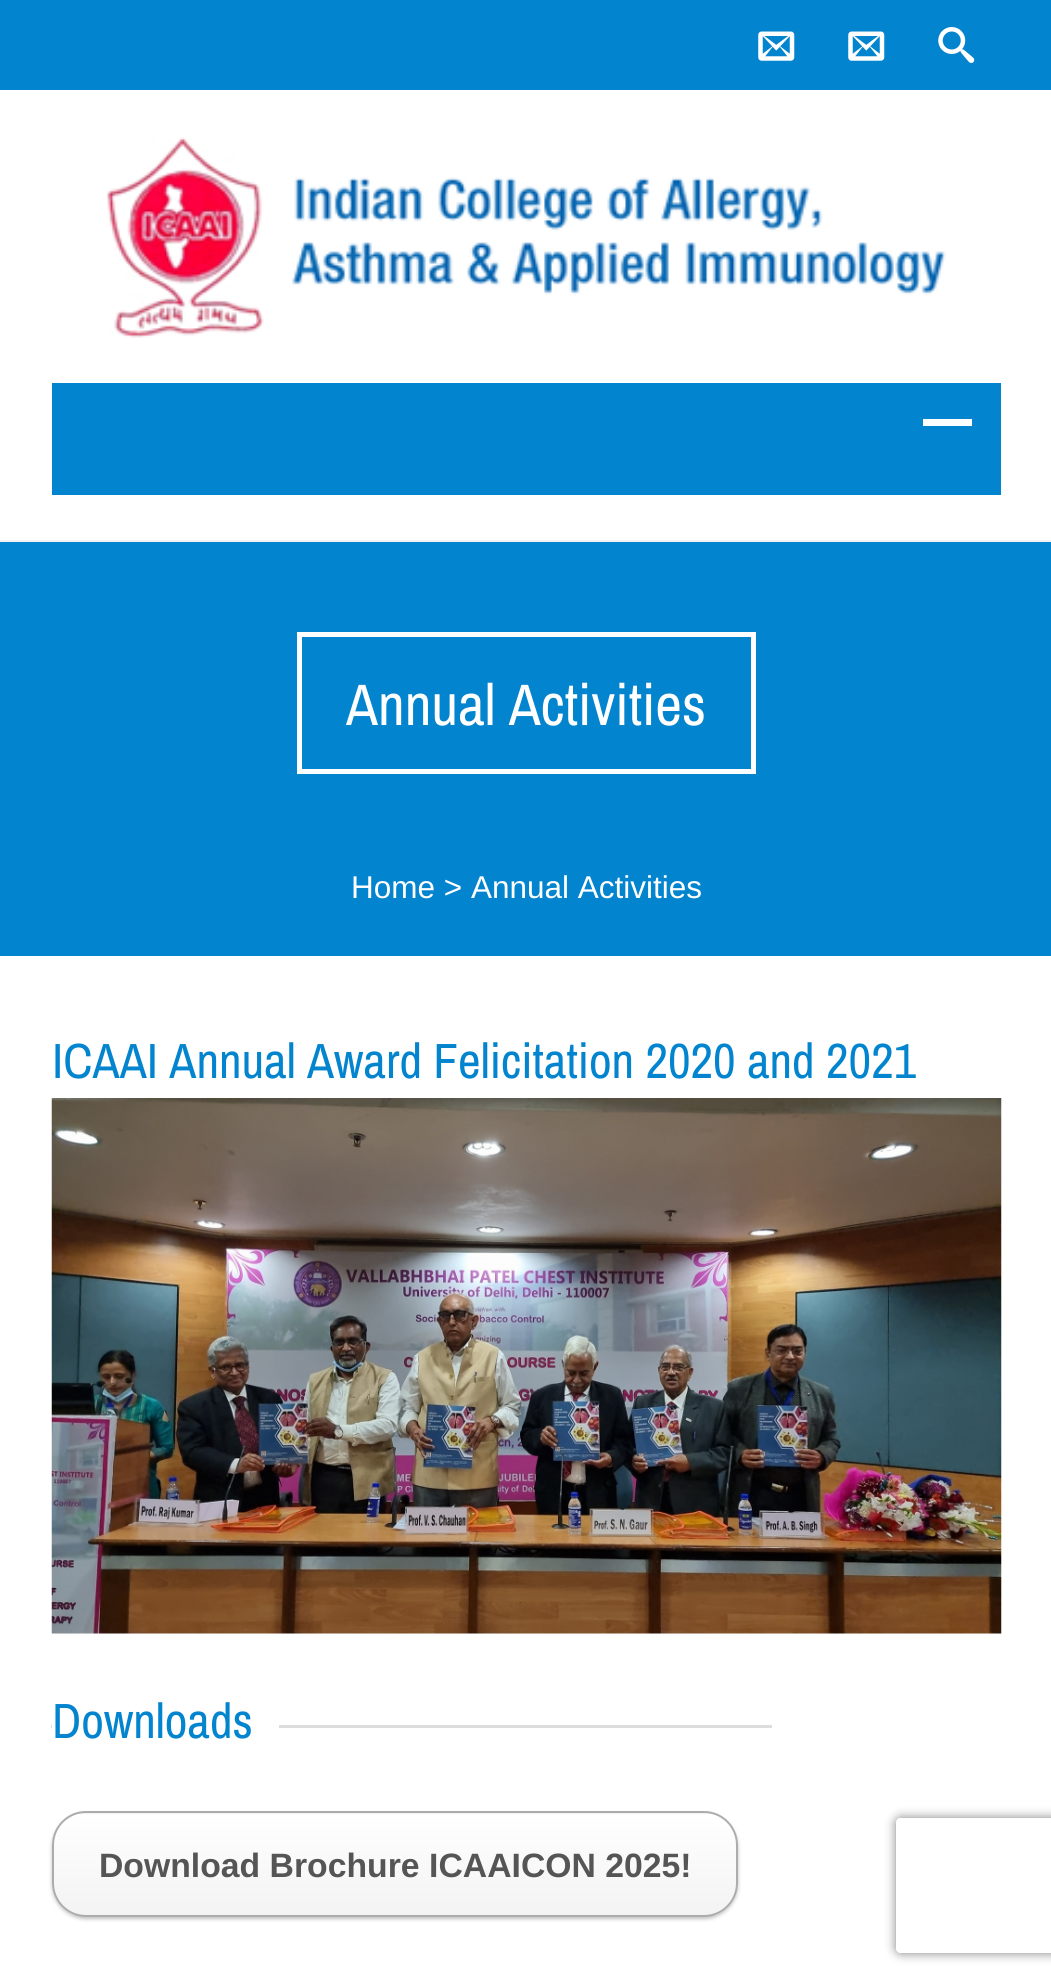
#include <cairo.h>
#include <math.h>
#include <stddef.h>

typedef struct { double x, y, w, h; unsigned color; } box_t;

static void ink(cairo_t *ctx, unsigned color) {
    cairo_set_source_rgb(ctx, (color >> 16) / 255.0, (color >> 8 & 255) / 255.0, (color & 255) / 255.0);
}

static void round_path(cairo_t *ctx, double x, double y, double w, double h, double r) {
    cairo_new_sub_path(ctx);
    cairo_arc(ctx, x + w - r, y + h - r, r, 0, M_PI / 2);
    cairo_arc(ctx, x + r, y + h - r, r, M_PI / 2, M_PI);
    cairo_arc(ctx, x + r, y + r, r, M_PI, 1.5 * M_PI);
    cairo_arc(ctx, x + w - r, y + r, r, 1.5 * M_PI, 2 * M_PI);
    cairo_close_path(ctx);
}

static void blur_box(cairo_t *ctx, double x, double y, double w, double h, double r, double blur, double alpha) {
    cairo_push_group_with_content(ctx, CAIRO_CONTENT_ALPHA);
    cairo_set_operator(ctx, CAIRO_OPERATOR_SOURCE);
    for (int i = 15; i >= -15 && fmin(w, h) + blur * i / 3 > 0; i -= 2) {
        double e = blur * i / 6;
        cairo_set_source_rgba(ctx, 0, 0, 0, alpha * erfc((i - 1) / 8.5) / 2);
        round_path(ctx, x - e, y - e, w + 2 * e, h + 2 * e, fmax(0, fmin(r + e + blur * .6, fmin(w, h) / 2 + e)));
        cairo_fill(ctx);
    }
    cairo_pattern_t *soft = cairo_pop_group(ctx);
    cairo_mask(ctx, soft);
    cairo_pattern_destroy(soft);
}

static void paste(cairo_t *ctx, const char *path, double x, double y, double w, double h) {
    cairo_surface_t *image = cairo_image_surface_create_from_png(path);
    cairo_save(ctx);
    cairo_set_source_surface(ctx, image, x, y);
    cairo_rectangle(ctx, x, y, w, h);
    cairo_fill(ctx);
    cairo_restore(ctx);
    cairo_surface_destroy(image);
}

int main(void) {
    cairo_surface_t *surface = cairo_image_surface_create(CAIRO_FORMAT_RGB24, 1051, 1984);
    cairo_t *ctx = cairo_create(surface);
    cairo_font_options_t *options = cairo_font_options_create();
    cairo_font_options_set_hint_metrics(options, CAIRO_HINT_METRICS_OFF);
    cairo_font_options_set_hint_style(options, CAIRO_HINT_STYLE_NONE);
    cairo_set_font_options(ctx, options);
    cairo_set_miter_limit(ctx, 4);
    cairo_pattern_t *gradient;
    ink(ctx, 0xFFFFFF);
    cairo_paint(ctx);
    ink(ctx, 0x0384CE);
    cairo_rectangle(ctx, 0, 0, 1051, 90);
    cairo_fill(ctx);
    paste(ctx, "media/1.png", 758, 31, 37, 30);
    paste(ctx, "media/1.png", 848, 31, 37, 30);
    paste(ctx, "media/2.png", 938, 27, 37, 36);
    ink(ctx, 0xF3F3F3);
    cairo_rectangle(ctx, 0, 540, 1051, 2);
    cairo_fill(ctx);
    paste(ctx, "media/3.png", 106, 137, 840, 201);
    {
        static const box_t items[] = {
            {52, 383, 949, 112, 0x0384CE},
            {923, 419, 49, 7, 0xFFFFFF},
            {0, 542, 1051, 414, 0x0384CE},
        };
        for (size_t i = 0; i < sizeof items / sizeof *items; i++) {
            ink(ctx, items[i].color);
            cairo_rectangle(ctx, items[i].x, items[i].y, items[i].w, items[i].h);
            cairo_fill(ctx);
        }
    }
    cairo_rectangle(ctx, 299.5, 634.5, 454, 137);
    ink(ctx, 0xFFFFFF);
    cairo_set_line_width(ctx, 5);
    cairo_stroke(ctx);
    cairo_select_font_face(ctx, "Archivo Narrow", CAIRO_FONT_SLANT_NORMAL, CAIRO_FONT_WEIGHT_NORMAL);
    cairo_set_font_size(ctx, 58.5);
    cairo_move_to(ctx, 346, 725);
    cairo_show_text(ctx, "Annual Activities");
    cairo_select_font_face(ctx, "Liberation Sans", CAIRO_FONT_SLANT_NORMAL, CAIRO_FONT_WEIGHT_NORMAL);
    cairo_set_font_size(ctx, 31.5);
    cairo_move_to(ctx, 351, 898);
    cairo_show_text(ctx, "Home > Annual Activities");
    cairo_select_font_face(ctx, "Archivo Narrow", CAIRO_FONT_SLANT_NORMAL, CAIRO_FONT_WEIGHT_NORMAL);
    cairo_set_font_size(ctx, 49.5);
    ink(ctx, 0x0384CE);
    cairo_move_to(ctx, 52, 1078);
    cairo_show_text(ctx, "ICAAI Annual Award Felicitation 2020 and 2021");
    paste(ctx, "media/4.png", 51, 1098, 951, 536);
    ink(ctx, 0xDDDDDD);
    cairo_rectangle(ctx, 51, 1725, 721, 3);
    cairo_fill(ctx);
    ink(ctx, 0xFFFFFF);
    cairo_rectangle(ctx, 52, 1725, 227, 3);
    cairo_fill(ctx);
    ink(ctx, 0x0384CE);
    cairo_move_to(ctx, 52, 1738);
    cairo_show_text(ctx, "Downloads");
    ink(ctx, 0x000000);
    blur_box(ctx, 52, 1814, 686, 105, 34, 2, 0.25);
    cairo_save(ctx);
    round_path(ctx, 52, 1811, 686, 106, 34);
    cairo_clip(ctx);
    gradient = cairo_pattern_create_linear(395, 1712, 395, 1814);
    cairo_pattern_add_color_stop_rgba(gradient, 0, 1, 1, 1, 1);
    cairo_pattern_add_color_stop_rgba(gradient, 1, 0.953, 0.953, 0.953, 1);
    cairo_set_source(ctx, gradient);
    cairo_pattern_destroy(gradient);
    cairo_rectangle(ctx, 72, 1811, 646, 3);
    cairo_fill(ctx);
    gradient = cairo_pattern_create_linear(395, 1814, 395, 1915);
    cairo_pattern_add_color_stop_rgba(gradient, 0, 1, 1, 1, 1);
    cairo_pattern_add_color_stop_rgba(gradient, 1, 0.953, 0.953, 0.953, 1);
    cairo_set_source(ctx, gradient);
    cairo_pattern_destroy(gradient);
    cairo_rectangle(ctx, 52, 1814, 686, 101);
    cairo_fill(ctx);
    cairo_restore(ctx);
    round_path(ctx, 53, 1812, 684, 104, 33);
    ink(ctx, 0xACACAC);
    cairo_set_line_width(ctx, 2);
    cairo_stroke(ctx);
    cairo_select_font_face(ctx, "Liberation Sans", CAIRO_FONT_SLANT_NORMAL, CAIRO_FONT_WEIGHT_BOLD);
    cairo_set_font_size(ctx, 33.75);
    ink(ctx, 0x555555);
    cairo_move_to(ctx, 99, 1877);
    cairo_show_text(ctx, "Download Brochure ICAAICON 2025!");
    cairo_save(ctx);
    cairo_set_fill_rule(ctx, CAIRO_FILL_RULE_EVEN_ODD);
    cairo_new_path(ctx);
    cairo_move_to(ctx, 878, 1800);
    cairo_line_to(ctx, 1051, 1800);
    cairo_line_to(ctx, 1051, 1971);
    cairo_line_to(ctx, 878, 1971);
    cairo_close_path(ctx);
    cairo_move_to(ctx, 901, 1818);
    cairo_line_to(ctx, 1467, 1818);
    cairo_curve_to(ctx, 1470, 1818, 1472, 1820, 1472, 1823);
    cairo_line_to(ctx, 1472, 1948);
    cairo_curve_to(ctx, 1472, 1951, 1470, 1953, 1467, 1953);
    cairo_line_to(ctx, 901, 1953);
    cairo_curve_to(ctx, 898, 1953, 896, 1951, 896, 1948);
    cairo_line_to(ctx, 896, 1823);
    cairo_curve_to(ctx, 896, 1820, 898, 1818, 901, 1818);
    cairo_close_path(ctx);
    cairo_clip(ctx);
    ink(ctx, 0x808080);
    blur_box(ctx, 896, 1818, 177, 135, 5, 5.5, 1);
    cairo_restore(ctx);
    cairo_surface_write_to_png(surface, "image.png");
    cairo_font_options_destroy(options);
    cairo_destroy(ctx);
    cairo_surface_destroy(surface);
    return 0;
}
